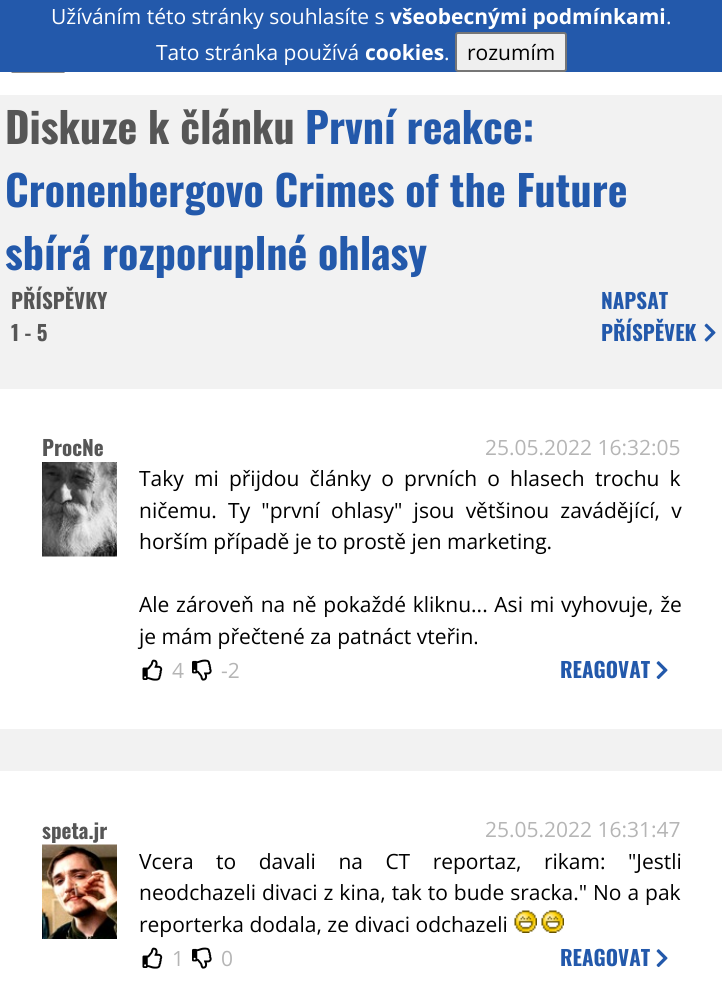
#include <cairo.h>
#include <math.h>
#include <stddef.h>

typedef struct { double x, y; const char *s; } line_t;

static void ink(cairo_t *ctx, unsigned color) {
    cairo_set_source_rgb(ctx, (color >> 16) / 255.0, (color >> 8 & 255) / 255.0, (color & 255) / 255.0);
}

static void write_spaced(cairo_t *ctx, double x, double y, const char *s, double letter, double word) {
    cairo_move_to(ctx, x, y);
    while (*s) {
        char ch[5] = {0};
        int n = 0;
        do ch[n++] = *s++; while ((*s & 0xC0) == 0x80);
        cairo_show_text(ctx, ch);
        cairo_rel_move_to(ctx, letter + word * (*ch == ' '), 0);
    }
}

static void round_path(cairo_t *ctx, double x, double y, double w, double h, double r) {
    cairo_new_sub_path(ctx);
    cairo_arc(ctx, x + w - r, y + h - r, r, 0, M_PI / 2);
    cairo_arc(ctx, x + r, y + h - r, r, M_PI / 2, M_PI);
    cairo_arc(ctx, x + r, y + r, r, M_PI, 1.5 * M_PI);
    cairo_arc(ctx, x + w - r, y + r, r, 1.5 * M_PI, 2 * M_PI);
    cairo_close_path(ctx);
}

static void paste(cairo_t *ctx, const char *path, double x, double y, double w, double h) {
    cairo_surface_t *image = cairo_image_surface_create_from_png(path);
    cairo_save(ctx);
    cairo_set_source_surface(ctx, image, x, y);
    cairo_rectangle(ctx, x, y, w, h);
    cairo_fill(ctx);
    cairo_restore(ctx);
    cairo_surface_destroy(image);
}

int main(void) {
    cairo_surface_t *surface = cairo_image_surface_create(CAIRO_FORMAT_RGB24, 722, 999);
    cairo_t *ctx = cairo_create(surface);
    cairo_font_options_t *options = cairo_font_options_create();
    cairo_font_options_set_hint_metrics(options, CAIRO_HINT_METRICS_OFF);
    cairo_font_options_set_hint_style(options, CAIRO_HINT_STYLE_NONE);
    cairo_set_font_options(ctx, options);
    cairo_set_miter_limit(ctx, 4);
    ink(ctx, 0xF2F2F2);
    cairo_paint(ctx);
    ink(ctx, 0x2359AB);
    cairo_rectangle(ctx, 0, 0, 722, 72);
    cairo_fill(ctx);
    cairo_select_font_face(ctx, "Open Sans", CAIRO_FONT_SLANT_NORMAL, CAIRO_FONT_WEIGHT_NORMAL);
    cairo_set_font_size(ctx, 21);
    ink(ctx, 0xFFFFFF);
    cairo_move_to(ctx, 51, 24);
    cairo_show_text(ctx, "Užíváním této stránky souhlasíte s");
    cairo_select_font_face(ctx, "Open Sans", CAIRO_FONT_SLANT_NORMAL, CAIRO_FONT_WEIGHT_BOLD);
    cairo_move_to(ctx, 390, 24);
    cairo_show_text(ctx, "všeobecnými podmínkami");
    cairo_select_font_face(ctx, "Open Sans", CAIRO_FONT_SLANT_NORMAL, CAIRO_FONT_WEIGHT_NORMAL);
    cairo_move_to(ctx, 666, 24);
    cairo_show_text(ctx, ".");
    cairo_move_to(ctx, 156, 60);
    cairo_show_text(ctx, "Tato stránka používá");
    cairo_select_font_face(ctx, "Open Sans", CAIRO_FONT_SLANT_NORMAL, CAIRO_FONT_WEIGHT_BOLD);
    cairo_move_to(ctx, 365, 60);
    cairo_show_text(ctx, "cookies");
    cairo_select_font_face(ctx, "Open Sans", CAIRO_FONT_SLANT_NORMAL, CAIRO_FONT_WEIGHT_NORMAL);
    cairo_move_to(ctx, 444, 60);
    cairo_show_text(ctx, ".");
    ink(ctx, 0xEFEFEF);
    round_path(ctx, 456, 33, 110, 38, 2);
    cairo_fill_preserve(ctx);
    ink(ctx, 0x767676);
    cairo_stroke(ctx);
    ink(ctx, 0x000000);
    cairo_move_to(ctx, 467, 60);
    cairo_show_text(ctx, "rozumím");
    ink(ctx, 0xFFFFFF);
    cairo_rectangle(ctx, 0, 72, 722, 23);
    cairo_fill(ctx);
    paste(ctx, "media/1.png", 11, 72, 54, 1);
    cairo_select_font_face(ctx, "Oswald", CAIRO_FONT_SLANT_NORMAL, CAIRO_FONT_WEIGHT_BOLD);
    cairo_set_font_size(ctx, 42);
    ink(ctx, 0x565656);
    cairo_move_to(ctx, 5, 144);
    cairo_show_text(ctx, "Diskuze k článku");
    ink(ctx, 0x2359AB);
    {
        static const line_t items[] = {
            {305, 144, "První reakce:"},
            {5, 207, "Cronenbergovo Crimes of the Future"},
            {5, 270, "sbírá rozporuplné ohlasy"},
        };
        for (size_t i = 0; i < sizeof items / sizeof *items; i++) {
            cairo_move_to(ctx, items[i].x, items[i].y);
            cairo_show_text(ctx, items[i].s);
        }
    }
    cairo_set_font_size(ctx, 21);
    ink(ctx, 0x565656);
    cairo_move_to(ctx, 11, 309);
    cairo_show_text(ctx, "PŘÍSPĚVKY");
    cairo_move_to(ctx, 11, 341);
    cairo_show_text(ctx, "1 - 5");
    ink(ctx, 0x2359AB);
    cairo_move_to(ctx, 601, 309);
    cairo_show_text(ctx, "NAPSAT");
    cairo_move_to(ctx, 601, 341);
    cairo_show_text(ctx, "PŘÍSPĚVEK");
    paste(ctx, "media/2.png", 704, 323, 12, 19);
    ink(ctx, 0xFFFFFF);
    cairo_rectangle(ctx, 0, 389, 722, 340);
    cairo_fill(ctx);
    ink(ctx, 0x565656);
    cairo_move_to(ctx, 42, 456);
    cairo_show_text(ctx, "ProcNe");
    paste(ctx, "media/3.png", 42, 462, 75, 95);
    cairo_select_font_face(ctx, "Open Sans", CAIRO_FONT_SLANT_NORMAL, CAIRO_FONT_WEIGHT_NORMAL);
    ink(ctx, 0xB5B5B5);
    cairo_move_to(ctx, 485, 455);
    cairo_show_text(ctx, "25.05.2022 16:32:05");
    ink(ctx, 0x000000);
    write_spaced(ctx, 139, 486, "Taky mi přijdou články o prvních o hlasech trochu k", 0, 4.75);
    write_spaced(ctx, 139, 518, "ničemu. Ty \"první ohlasy\" jsou většinou zavádějící, v", 0, 5.75);
    cairo_move_to(ctx, 139, 549);
    cairo_show_text(ctx, "horším případě je to prostě jen marketing.");
    write_spaced(ctx, 139, 612, "Ale zároveň na ně pokaždé kliknu... Asi mi vyhovuje, že", 0, 1.25);
    cairo_move_to(ctx, 139, 644);
    cairo_show_text(ctx, "je mám přečtené za patnáct vteřin.");
    paste(ctx, "media/4.png", 142, 659, 21, 22);
    ink(ctx, 0xB5B5B5);
    cairo_move_to(ctx, 172, 678);
    cairo_show_text(ctx, "4");
    paste(ctx, "media/5.png", 192, 659, 20, 22);
    cairo_move_to(ctx, 221, 678);
    cairo_show_text(ctx, "-2");
    cairo_select_font_face(ctx, "Oswald", CAIRO_FONT_SLANT_NORMAL, CAIRO_FONT_WEIGHT_BOLD);
    ink(ctx, 0x2359AB);
    cairo_move_to(ctx, 560, 678);
    cairo_show_text(ctx, "REAGOVAT");
    paste(ctx, "media/6.png", 656, 661, 12, 19);
    ink(ctx, 0xFFFFFF);
    cairo_rectangle(ctx, 0, 771, 722, 228);
    cairo_fill(ctx);
    ink(ctx, 0x565656);
    cairo_move_to(ctx, 42, 839);
    cairo_show_text(ctx, "speta.jr");
    paste(ctx, "media/7.png", 42, 844, 75, 95);
    cairo_select_font_face(ctx, "Open Sans", CAIRO_FONT_SLANT_NORMAL, CAIRO_FONT_WEIGHT_NORMAL);
    ink(ctx, 0xB5B5B5);
    cairo_move_to(ctx, 485, 837);
    cairo_show_text(ctx, "25.05.2022 16:31:47");
    ink(ctx, 0x000000);
    write_spaced(ctx, 139, 869, "Vcera to davali na CT reportaz, rikam: \"Jestli", 0, 17);
    write_spaced(ctx, 139, 900, "neodchazeli divaci z kina, tak to bude sracka.\" No a pak", 0, 0.5);
    cairo_move_to(ctx, 139, 932);
    cairo_show_text(ctx, "reporterka dodala, ze divaci odchazeli");
    paste(ctx, "media/8.png", 514, 910, 23, 23);
    paste(ctx, "media/9.png", 541, 910, 23, 23);
    paste(ctx, "media/4.png", 142, 947, 21, 22);
    ink(ctx, 0xB5B5B5);
    cairo_move_to(ctx, 172, 966);
    cairo_show_text(ctx, "1");
    paste(ctx, "media/5.png", 192, 947, 20, 22);
    cairo_move_to(ctx, 221, 966);
    cairo_show_text(ctx, "0");
    cairo_select_font_face(ctx, "Oswald", CAIRO_FONT_SLANT_NORMAL, CAIRO_FONT_WEIGHT_BOLD);
    ink(ctx, 0x2359AB);
    cairo_move_to(ctx, 560, 966);
    cairo_show_text(ctx, "REAGOVAT");
    paste(ctx, "media/6.png", 656, 949, 12, 19);
    cairo_surface_write_to_png(surface, "image.png");
    cairo_font_options_destroy(options);
    cairo_destroy(ctx);
    cairo_surface_destroy(surface);
    return 0;
}
